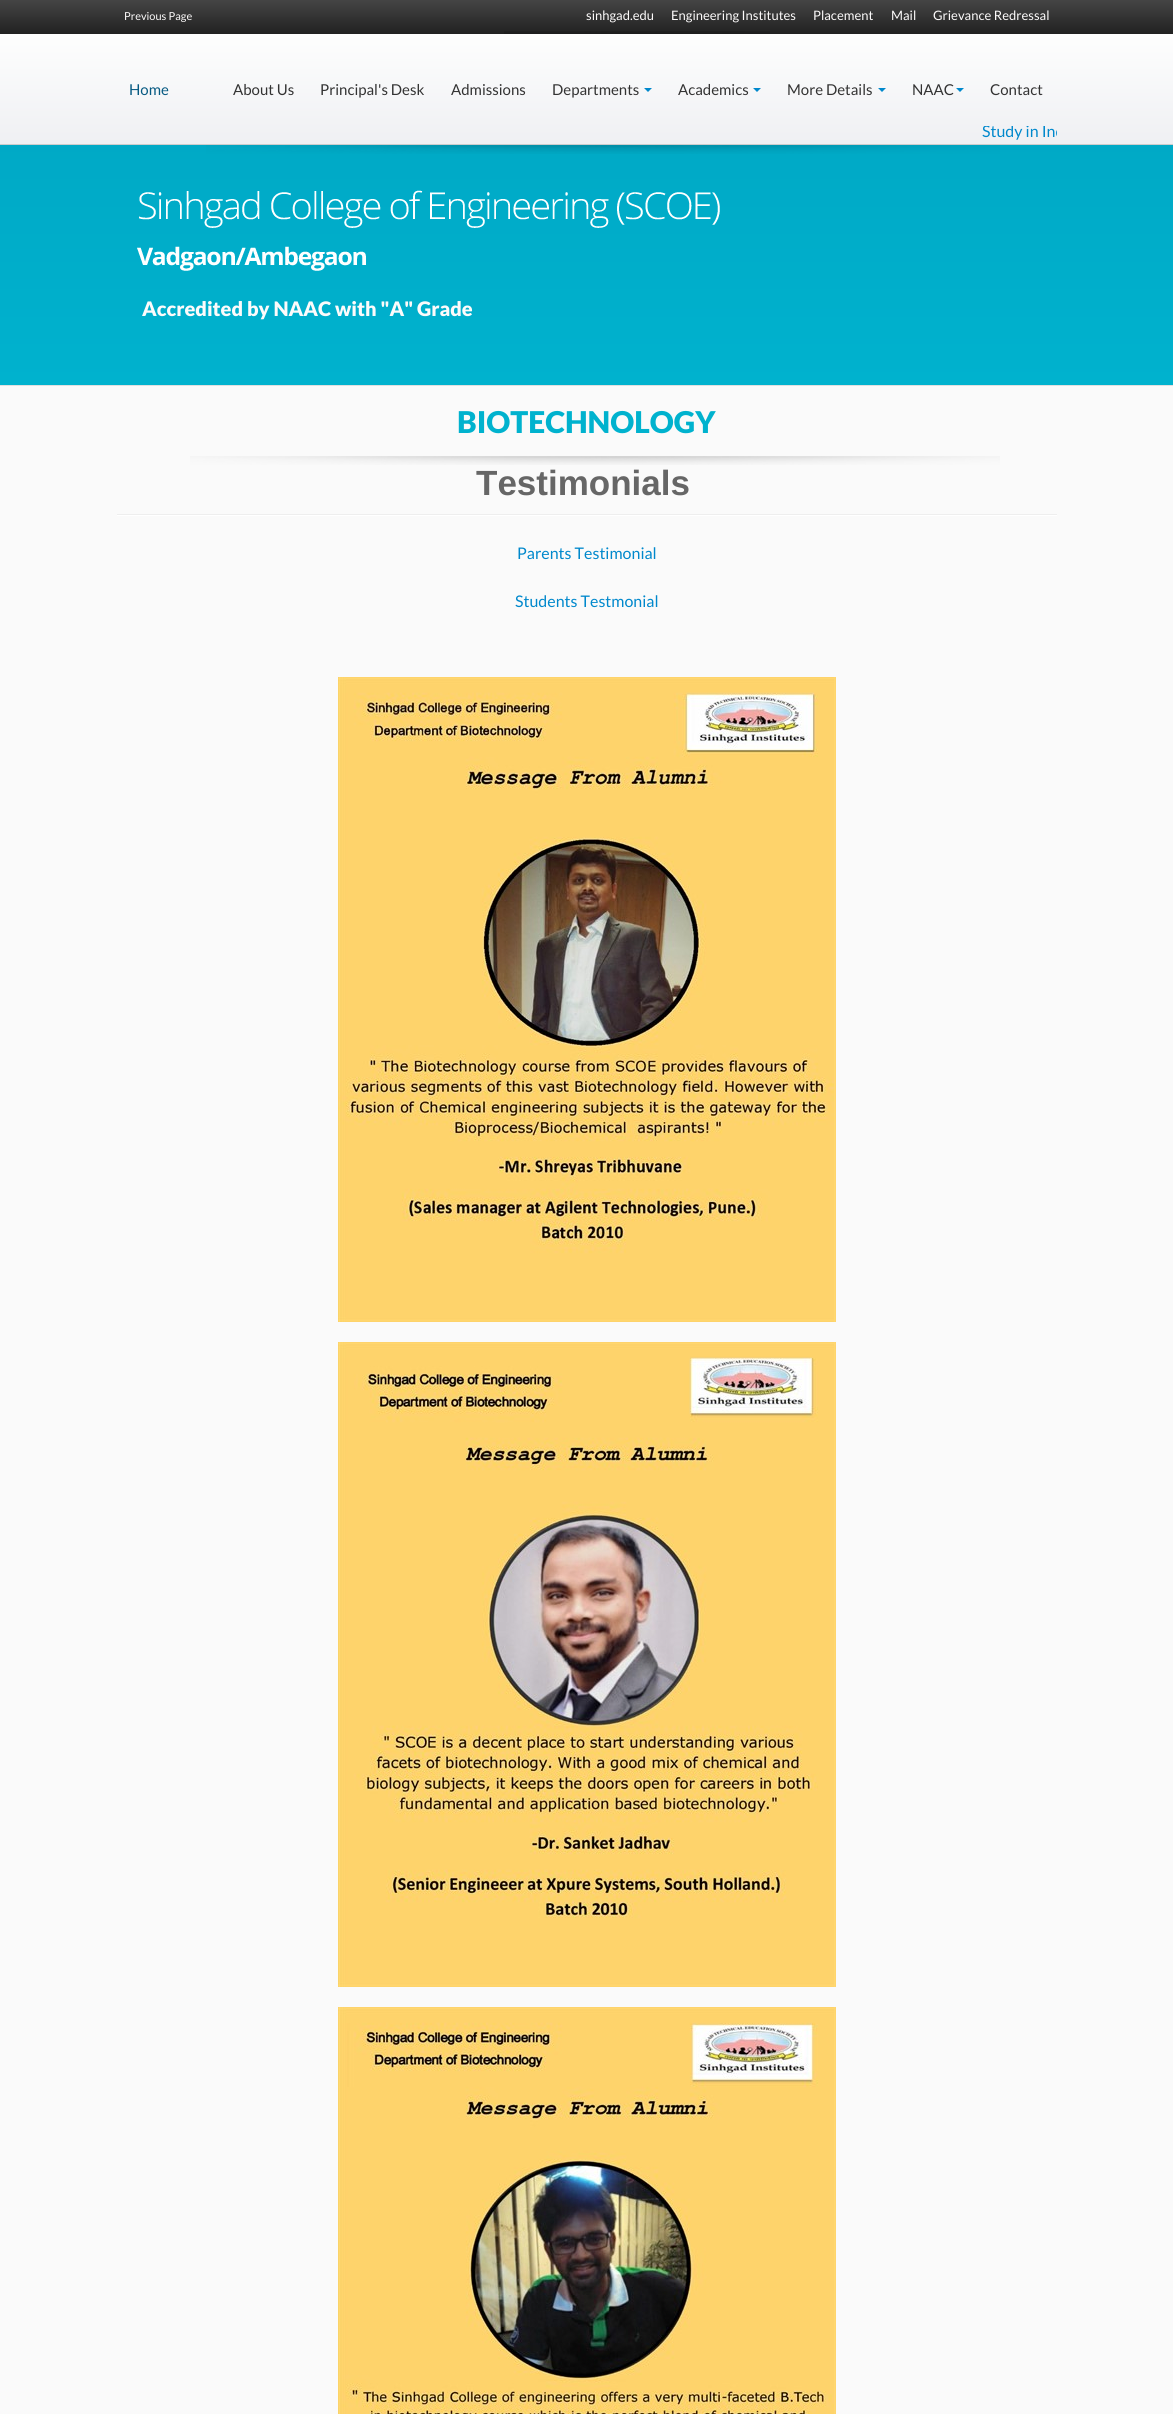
#include <cairo.h>
#include <math.h>
#include <stddef.h>

typedef struct { double x, y; const char *s; } line_t;

static void ink(cairo_t *ctx, unsigned color) {
    cairo_set_source_rgb(ctx, (color >> 16) / 255.0, (color >> 8 & 255) / 255.0, (color & 255) / 255.0);
}

static void paste(cairo_t *ctx, const char *path, double x, double y, double w, double h) {
    cairo_surface_t *image = cairo_image_surface_create_from_png(path);
    cairo_save(ctx);
    cairo_set_source_surface(ctx, image, x, y);
    cairo_rectangle(ctx, x, y, w, h);
    cairo_fill(ctx);
    cairo_restore(ctx);
    cairo_surface_destroy(image);
}

int main(void) {
    cairo_surface_t *surface = cairo_image_surface_create(CAIRO_FORMAT_RGB24, 1173, 2414);
    cairo_t *ctx = cairo_create(surface);
    cairo_font_options_t *options = cairo_font_options_create();
    cairo_font_options_set_hint_metrics(options, CAIRO_HINT_METRICS_OFF);
    cairo_font_options_set_hint_style(options, CAIRO_HINT_STYLE_NONE);
    cairo_set_font_options(ctx, options);
    cairo_set_miter_limit(ctx, 4);
    cairo_pattern_t *gradient;
    ink(ctx, 0xFAFAFA);
    cairo_paint(ctx);
    gradient = cairo_pattern_create_linear(587, 0, 587, 34);
    cairo_pattern_add_color_stop_rgba(gradient, 0, 0.267, 0.267, 0.267, 1);
    cairo_pattern_add_color_stop_rgba(gradient, 1, 0.133, 0.133, 0.133, 1);
    cairo_set_source(ctx, gradient);
    cairo_pattern_destroy(gradient);
    cairo_rectangle(ctx, 0, 0, 1173, 34);
    cairo_fill(ctx);
    paste(ctx, "media/1.png", 504, 31, 266, 3);
    cairo_select_font_face(ctx, "Lato", CAIRO_FONT_SLANT_NORMAL, CAIRO_FONT_WEIGHT_NORMAL);
    cairo_set_font_size(ctx, 11);
    ink(ctx, 0xFDFBFB);
    cairo_move_to(ctx, 124, 20);
    cairo_show_text(ctx, "Previous Page");
    cairo_set_font_size(ctx, 13);
    {
        static const line_t items[] = {
            {586, 20, "sinhgad.edu"},
            {671, 20, "Engineering Institutes"},
            {813, 20, "Placement"},
            {891, 20, "Mail"},
            {933, 20, "Grievance Redressal"},
        };
        for (size_t i = 0; i < sizeof items / sizeof *items; i++) {
            cairo_move_to(ctx, items[i].x, items[i].y);
            cairo_show_text(ctx, items[i].s);
        }
    }
    gradient = cairo_pattern_create_linear(587, 34, 587, 144);
    cairo_pattern_add_color_stop_rgba(gradient, 0, 0.996, 0.996, 0.996, 1);
    cairo_pattern_add_color_stop_rgba(gradient, 1, 0.937, 0.941, 0.953, 1);
    cairo_set_source(ctx, gradient);
    cairo_pattern_destroy(gradient);
    cairo_rectangle(ctx, 0, 34, 1173, 110);
    cairo_fill(ctx);
    ink(ctx, 0xCCCCCC);
    cairo_rectangle(ctx, 0, 144, 1173, 1);
    cairo_fill(ctx);
    cairo_set_font_size(ctx, 15);
    ink(ctx, 0x075A82);
    cairo_move_to(ctx, 129, 95);
    cairo_show_text(ctx, "Home");
    ink(ctx, 0x333333);
    {
        static const line_t items[] = {
            {233, 95, "About Us"},
            {320, 95, "Principal's Desk"},
            {451, 95, "Admissions"},
            {552, 95, "Departments"},
        };
        for (size_t i = 0; i < sizeof items / sizeof *items; i++) {
            cairo_move_to(ctx, items[i].x, items[i].y);
            cairo_show_text(ctx, items[i].s);
        }
    }
    ink(ctx, 0x0088CC);
    cairo_new_path(ctx);
    cairo_move_to(ctx, 644, 88);
    cairo_line_to(ctx, 652, 88);
    cairo_line_to(ctx, 648, 92);
    cairo_close_path(ctx);
    cairo_fill(ctx);
    ink(ctx, 0x333333);
    cairo_move_to(ctx, 678, 95);
    cairo_show_text(ctx, "Academics");
    ink(ctx, 0x0088CC);
    cairo_new_path(ctx);
    cairo_move_to(ctx, 753, 88);
    cairo_line_to(ctx, 761, 88);
    cairo_line_to(ctx, 757, 92);
    cairo_close_path(ctx);
    cairo_fill(ctx);
    ink(ctx, 0x333333);
    cairo_move_to(ctx, 787, 95);
    cairo_show_text(ctx, "More Details");
    ink(ctx, 0x0088CC);
    cairo_new_path(ctx);
    cairo_move_to(ctx, 878, 88);
    cairo_line_to(ctx, 886, 88);
    cairo_line_to(ctx, 882, 92);
    cairo_close_path(ctx);
    cairo_fill(ctx);
    ink(ctx, 0x333333);
    cairo_move_to(ctx, 912, 95);
    cairo_show_text(ctx, "NAAC");
    ink(ctx, 0x0088CC);
    cairo_new_path(ctx);
    cairo_move_to(ctx, 956, 88);
    cairo_line_to(ctx, 964, 88);
    cairo_line_to(ctx, 960, 92);
    cairo_close_path(ctx);
    cairo_fill(ctx);
    ink(ctx, 0x333333);
    cairo_move_to(ctx, 990, 95);
    cairo_show_text(ctx, "Contact");
    cairo_save(ctx);
    cairo_rectangle(ctx, 117, 126, 940, 20);
    cairo_clip(ctx);
    cairo_set_font_size(ctx, 16);
    ink(ctx, 0x0088CC);
    cairo_move_to(ctx, 982, 137);
    cairo_show_text(ctx, "Study in Ind");
    cairo_restore(ctx);
    gradient = cairo_pattern_create_linear(587, 140, 587, 385);
    cairo_pattern_add_color_stop_rgba(gradient, 0, 0, 0.663, 0.776, 1);
    cairo_pattern_add_color_stop_rgba(gradient, 1, 0, 0.698, 0.808, 1);
    cairo_set_source(ctx, gradient);
    cairo_pattern_destroy(gradient);
    cairo_rectangle(ctx, 0, 145, 1173, 240);
    cairo_fill(ctx);
    paste(ctx, "media/2.png", 206, 145, 794, 9);
    ink(ctx, 0xE0E0E0);
    cairo_rectangle(ctx, 0, 385, 1173, 1);
    cairo_fill(ctx);
    paste(ctx, "media/3.png", 137, 190, 583, 81);
    cairo_select_font_face(ctx, "Lato Black", CAIRO_FONT_SLANT_NORMAL, CAIRO_FONT_WEIGHT_NORMAL);
    cairo_set_font_size(ctx, 20);
    ink(ctx, 0xFDFBFB);
    cairo_move_to(ctx, 142, 316);
    cairo_show_text(ctx, "Accredited by NAAC with \"A\" Grade");
    cairo_set_font_size(ctx, 30);
    ink(ctx, 0x00B2CE);
    cairo_move_to(ctx, 457, 433);
    cairo_show_text(ctx, "BIOTECHNOLOGY");
    paste(ctx, "media/4.png", 190, 456, 810, 9);
    cairo_select_font_face(ctx, "Liberation Sans", CAIRO_FONT_SLANT_NORMAL, CAIRO_FONT_WEIGHT_BOLD);
    cairo_set_font_size(ctx, 35);
    ink(ctx, 0x666666);
    cairo_move_to(ctx, 476, 495);
    cairo_show_text(ctx, "Testimonials");
    ink(ctx, 0xEEEEEE);
    cairo_rectangle(ctx, 117, 514, 940, 1);
    cairo_fill(ctx);
    ink(ctx, 0xFFFFFF);
    cairo_rectangle(ctx, 117, 515, 940, 1);
    cairo_fill(ctx);
    cairo_select_font_face(ctx, "Lato", CAIRO_FONT_SLANT_NORMAL, CAIRO_FONT_WEIGHT_NORMAL);
    cairo_set_font_size(ctx, 16);
    ink(ctx, 0x0088CC);
    cairo_move_to(ctx, 517, 559);
    cairo_show_text(ctx, "Parents Testimonial");
    cairo_move_to(ctx, 515, 607);
    cairo_show_text(ctx, "Students Testmonial");
    paste(ctx, "media/5.png", 338, 677, 498, 645);
    paste(ctx, "media/6.png", 338, 1342, 498, 645);
    paste(ctx, "media/7.png", 338, 2007, 498, 407);
    cairo_surface_write_to_png(surface, "image.png");
    cairo_font_options_destroy(options);
    cairo_destroy(ctx);
    cairo_surface_destroy(surface);
    return 0;
}
